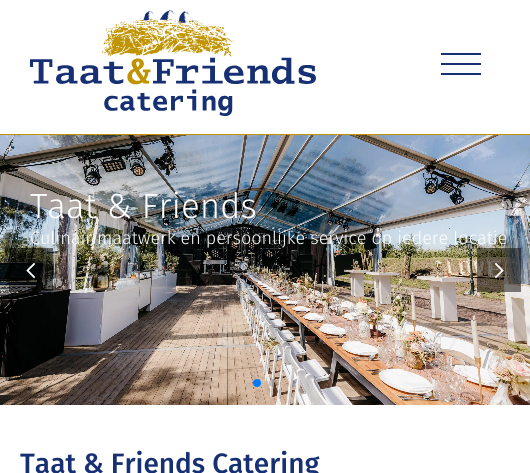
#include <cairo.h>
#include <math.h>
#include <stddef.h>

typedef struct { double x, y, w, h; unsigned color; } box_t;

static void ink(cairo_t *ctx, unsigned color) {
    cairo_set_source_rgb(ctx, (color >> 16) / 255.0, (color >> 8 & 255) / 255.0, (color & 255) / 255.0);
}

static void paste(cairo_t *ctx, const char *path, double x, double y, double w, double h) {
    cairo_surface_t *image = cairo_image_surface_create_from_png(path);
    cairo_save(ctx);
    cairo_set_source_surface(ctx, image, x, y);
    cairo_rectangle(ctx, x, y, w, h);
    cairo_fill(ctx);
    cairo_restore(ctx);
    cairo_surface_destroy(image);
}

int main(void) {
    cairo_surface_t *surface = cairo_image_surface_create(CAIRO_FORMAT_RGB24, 530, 473);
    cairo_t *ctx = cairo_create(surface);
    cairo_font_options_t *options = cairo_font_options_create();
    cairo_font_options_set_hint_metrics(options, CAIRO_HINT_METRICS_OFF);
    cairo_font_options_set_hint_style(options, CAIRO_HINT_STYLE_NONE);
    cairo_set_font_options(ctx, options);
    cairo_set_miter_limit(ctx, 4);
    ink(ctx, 0xFFFFFF);
    cairo_paint(ctx);
    ink(ctx, 0xC09300);
    cairo_rectangle(ctx, 0, 134, 530, 1);
    cairo_fill(ctx);
    paste(ctx, "media/1.png", 30, 10, 286, 106);
    {
        static const box_t items[] = {
            {441, 53, 40, 2, 0x163073},
            {441, 63, 40, 2, 0x163073},
            {441, 73, 40, 2, 0x163073},
        };
        for (size_t i = 0; i < sizeof items / sizeof *items; i++) {
            ink(ctx, items[i].color);
            cairo_rectangle(ctx, items[i].x, items[i].y, items[i].w, items[i].h);
            cairo_fill(ctx);
        }
    }
    paste(ctx, "media/2.png", 0, 135, 530, 270);
    cairo_select_font_face(ctx, "Fira Sans Light", CAIRO_FONT_SLANT_NORMAL, CAIRO_FONT_WEIGHT_NORMAL);
    cairo_set_font_size(ctx, 35);
    ink(ctx, 0xFFFFFF);
    cairo_move_to(ctx, 30, 218);
    cairo_show_text(ctx, "Taat & Friends");
    cairo_set_font_size(ctx, 18);
    cairo_move_to(ctx, 30, 244);
    cairo_show_text(ctx, "Culinair maatwerk en persoonlijke service op iedere locatie");
    cairo_set_source_rgba(ctx, 0, 0, 0, 0.5);
    cairo_rectangle(ctx, 9, 248, 44, 44);
    cairo_fill(ctx);
    cairo_new_path(ctx);
    cairo_move_to(ctx, 27.5, 270.5);
    cairo_line_to(ctx, 34, 264);
    cairo_move_to(ctx, 27.5, 270.5);
    cairo_line_to(ctx, 34, 277);
    ink(ctx, 0xFFFFFF);
    cairo_set_line_width(ctx, 1.8);
    cairo_set_line_cap(ctx, CAIRO_LINE_CAP_SQUARE);
    cairo_stroke(ctx);
    cairo_set_source_rgba(ctx, 0, 0, 0, 0.5);
    cairo_rectangle(ctx, 477, 248, 44, 44);
    cairo_fill(ctx);
    cairo_new_path(ctx);
    cairo_move_to(ctx, 502.5, 270.5);
    cairo_line_to(ctx, 496, 264);
    cairo_move_to(ctx, 502.5, 270.5);
    cairo_line_to(ctx, 496, 277);
    ink(ctx, 0xFFFFFF);
    cairo_stroke(ctx);
    ink(ctx, 0x057AFF);
    cairo_arc(ctx, 257, 383, 4, 0, 2 * M_PI);
    cairo_fill(ctx);
    cairo_set_source_rgba(ctx, 0, 0, 0, 0.2);
    cairo_arc(ctx, 273, 383, 4, 0, 2 * M_PI);
    cairo_fill(ctx);
    cairo_select_font_face(ctx, "Fira Sans Medium", CAIRO_FONT_SLANT_NORMAL, CAIRO_FONT_WEIGHT_NORMAL);
    cairo_set_font_size(ctx, 28);
    ink(ctx, 0x163073);
    cairo_move_to(ctx, 20, 473);
    cairo_show_text(ctx, "Taat & Friends Catering");
    cairo_surface_write_to_png(surface, "image.png");
    cairo_font_options_destroy(options);
    cairo_destroy(ctx);
    cairo_surface_destroy(surface);
    return 0;
}
